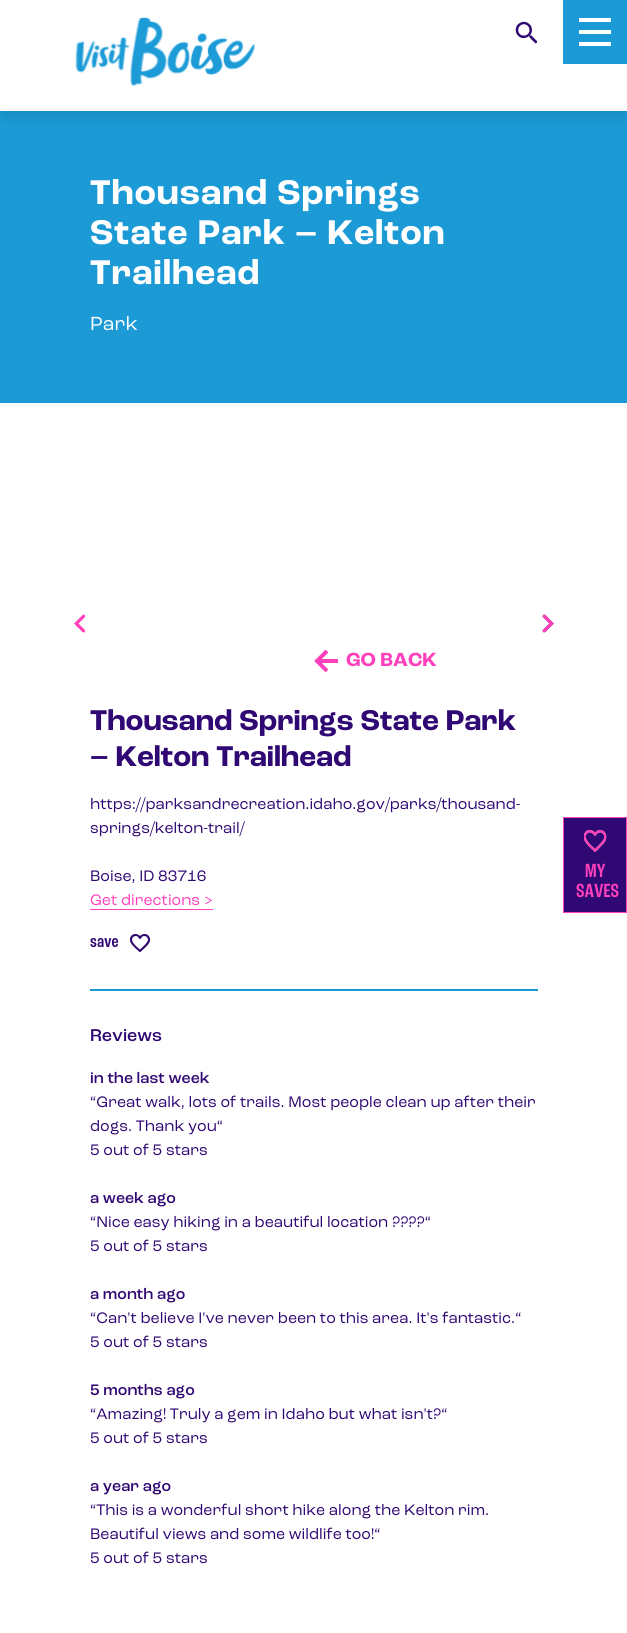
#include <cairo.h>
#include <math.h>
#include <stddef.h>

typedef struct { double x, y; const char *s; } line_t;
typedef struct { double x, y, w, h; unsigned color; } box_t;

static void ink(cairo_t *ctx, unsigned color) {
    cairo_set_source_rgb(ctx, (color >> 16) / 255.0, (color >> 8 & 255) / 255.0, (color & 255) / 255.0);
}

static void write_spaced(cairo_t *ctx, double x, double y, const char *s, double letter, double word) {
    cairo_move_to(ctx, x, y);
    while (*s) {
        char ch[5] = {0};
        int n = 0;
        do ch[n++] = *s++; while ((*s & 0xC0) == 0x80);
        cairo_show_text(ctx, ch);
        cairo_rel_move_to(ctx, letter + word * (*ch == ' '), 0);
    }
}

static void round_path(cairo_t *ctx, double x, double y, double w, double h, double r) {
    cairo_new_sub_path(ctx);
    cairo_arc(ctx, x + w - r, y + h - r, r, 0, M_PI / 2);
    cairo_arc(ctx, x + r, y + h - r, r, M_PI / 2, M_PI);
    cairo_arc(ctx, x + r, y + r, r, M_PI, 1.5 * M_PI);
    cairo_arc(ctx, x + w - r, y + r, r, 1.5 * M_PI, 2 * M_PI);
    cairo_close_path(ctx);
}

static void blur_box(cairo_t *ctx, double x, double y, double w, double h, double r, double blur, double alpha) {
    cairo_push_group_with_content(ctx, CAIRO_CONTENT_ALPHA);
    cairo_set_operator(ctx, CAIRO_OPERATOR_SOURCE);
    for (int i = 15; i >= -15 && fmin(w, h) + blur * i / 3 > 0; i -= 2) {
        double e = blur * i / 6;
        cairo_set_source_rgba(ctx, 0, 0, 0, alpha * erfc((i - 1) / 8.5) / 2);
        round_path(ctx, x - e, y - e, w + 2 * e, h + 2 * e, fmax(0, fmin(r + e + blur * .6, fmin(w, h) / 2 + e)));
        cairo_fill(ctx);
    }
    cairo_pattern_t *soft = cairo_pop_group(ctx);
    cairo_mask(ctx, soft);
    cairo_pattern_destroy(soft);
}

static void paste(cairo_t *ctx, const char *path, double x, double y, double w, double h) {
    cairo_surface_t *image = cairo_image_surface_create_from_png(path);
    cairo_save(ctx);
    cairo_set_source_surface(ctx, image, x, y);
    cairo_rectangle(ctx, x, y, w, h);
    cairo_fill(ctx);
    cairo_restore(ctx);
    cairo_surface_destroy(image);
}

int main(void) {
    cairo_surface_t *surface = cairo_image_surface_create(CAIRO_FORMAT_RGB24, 627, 1633);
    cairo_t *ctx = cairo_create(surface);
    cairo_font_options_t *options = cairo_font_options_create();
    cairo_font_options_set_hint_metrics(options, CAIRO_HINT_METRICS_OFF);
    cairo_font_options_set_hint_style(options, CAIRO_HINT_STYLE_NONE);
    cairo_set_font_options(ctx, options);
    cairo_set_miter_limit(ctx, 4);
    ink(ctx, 0xFFFFFF);
    cairo_paint(ctx);
    ink(ctx, 0x1C9AD6);
    cairo_rectangle(ctx, 0, 111, 627, 292);
    cairo_fill(ctx);
    cairo_save(ctx);
    cairo_rectangle(ctx, 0, 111, 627, 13);
    cairo_clip(ctx);
    ink(ctx, 0x000000);
    blur_box(ctx, 3, 13, 621, 105, 0, 7.5, 0.1);
    cairo_restore(ctx);
    paste(ctx, "media/1.png", 75, 17, 181, 70);
    paste(ctx, "media/2.png", 515, 21, 23, 23);
    {
        static const box_t items[] = {
            {563, 0, 64, 64, 0x1C9AD6},
            {579, 18, 32, 4, 0xFFFFFF},
            {579, 30, 32, 4, 0xFFFFFF},
            {579, 42, 32, 4, 0xFFFFFF},
        };
        for (size_t i = 0; i < sizeof items / sizeof *items; i++) {
            ink(ctx, items[i].color);
            cairo_rectangle(ctx, items[i].x, items[i].y, items[i].w, items[i].h);
            cairo_fill(ctx);
        }
    }
    cairo_select_font_face(ctx, "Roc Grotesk", CAIRO_FONT_SLANT_NORMAL, CAIRO_FONT_WEIGHT_BOLD);
    cairo_set_font_size(ctx, 36);
    {
        static const line_t items[] = {
            {90, 204, "Thousand Springs"},
            {90, 244, "State Park – Kelton"},
            {90, 284, "Trailhead"},
        };
        for (size_t i = 0; i < sizeof items / sizeof *items; i++) {
            write_spaced(ctx, items[i].x, items[i].y, items[i].s, 0.9, 0);
        }
    }
    cairo_select_font_face(ctx, "Roc Grotesk", CAIRO_FONT_SLANT_NORMAL, CAIRO_FONT_WEIGHT_NORMAL);
    cairo_set_font_size(ctx, 20);
    cairo_move_to(ctx, 90, 330);
    cairo_show_text(ctx, "Park");
    paste(ctx, "media/3.png", 74, 614, 12, 19);
    paste(ctx, "media/4.png", 542, 614, 12, 19);
    cairo_new_path(ctx);
    cairo_move_to(ctx, 327, 671);
    cairo_line_to(ctx, 317, 661);
    cairo_line_to(ctx, 327, 651);
    ink(ctx, 0xFF40BC);
    cairo_set_line_width(ctx, 4);
    cairo_stroke(ctx);
    cairo_rectangle(ctx, 317, 659, 21, 4);
    cairo_fill(ctx);
    cairo_select_font_face(ctx, "Roc Grotesk", CAIRO_FONT_SLANT_NORMAL, CAIRO_FONT_WEIGHT_BOLD);
    cairo_move_to(ctx, 346, 666);
    cairo_show_text(ctx, "GO BACK");
    cairo_set_font_size(ctx, 30);
    ink(ctx, 0x2F0873);
    cairo_move_to(ctx, 90, 730);
    cairo_show_text(ctx, "Thousand Springs State Park");
    cairo_move_to(ctx, 90, 766);
    cairo_show_text(ctx, "– Kelton Trailhead");
    cairo_select_font_face(ctx, "Roc Grotesk", CAIRO_FONT_SLANT_NORMAL, CAIRO_FONT_WEIGHT_NORMAL);
    cairo_set_font_size(ctx, 16);
    {
        static const line_t items[] = {
            {90, 809, "https://parksandrecreation.idaho.gov/parks/thousand-"},
            {90, 833, "springs/kelton-trail/"},
            {90, 881, "Boise, ID 83716"},
        };
        for (size_t i = 0; i < sizeof items / sizeof *items; i++) {
            cairo_move_to(ctx, items[i].x, items[i].y);
            cairo_show_text(ctx, items[i].s);
        }
    }
    ink(ctx, 0xFF40BC);
    cairo_move_to(ctx, 90, 905);
    cairo_show_text(ctx, "Get directions >");
    cairo_rectangle(ctx, 90, 909, 123, 1);
    cairo_fill(ctx);
    cairo_select_font_face(ctx, "Roc Grotesk Medium", CAIRO_FONT_SLANT_NORMAL, CAIRO_FONT_WEIGHT_NORMAL);
    cairo_set_font_size(ctx, 18);
    ink(ctx, 0x2F0873);
    cairo_move_to(ctx, 90, 947);
    cairo_show_text(ctx, "save");
    paste(ctx, "media/5.png", 130, 934, 20, 19);
    ink(ctx, 0x1C9AD6);
    cairo_rectangle(ctx, 90, 989, 448, 2);
    cairo_fill(ctx);
    cairo_select_font_face(ctx, "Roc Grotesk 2 Medium", CAIRO_FONT_SLANT_NORMAL, CAIRO_FONT_WEIGHT_NORMAL);
    ink(ctx, 0x2F0873);
    cairo_move_to(ctx, 90, 1041);
    cairo_show_text(ctx, "Reviews");
    cairo_set_font_size(ctx, 16);
    cairo_move_to(ctx, 90, 1083);
    cairo_show_text(ctx, "in the last week");
    cairo_select_font_face(ctx, "Roc Grotesk", CAIRO_FONT_SLANT_NORMAL, CAIRO_FONT_WEIGHT_NORMAL);
    {
        static const line_t items[] = {
            {90, 1107, "“Great walk, lots of trails. Most people clean up after their"},
            {90, 1131, "dogs. Thank you“"},
            {90, 1155, "5 out of 5 stars"},
        };
        for (size_t i = 0; i < sizeof items / sizeof *items; i++) {
            cairo_move_to(ctx, items[i].x, items[i].y);
            cairo_show_text(ctx, items[i].s);
        }
    }
    cairo_select_font_face(ctx, "Roc Grotesk 2 Medium", CAIRO_FONT_SLANT_NORMAL, CAIRO_FONT_WEIGHT_NORMAL);
    cairo_move_to(ctx, 90, 1203);
    cairo_show_text(ctx, "a week ago");
    cairo_select_font_face(ctx, "Roc Grotesk", CAIRO_FONT_SLANT_NORMAL, CAIRO_FONT_WEIGHT_NORMAL);
    cairo_move_to(ctx, 90, 1227);
    cairo_show_text(ctx, "“Nice easy hiking in a beautiful location ?\077?\077“");
    cairo_move_to(ctx, 90, 1251);
    cairo_show_text(ctx, "5 out of 5 stars");
    cairo_select_font_face(ctx, "Roc Grotesk 2 Medium", CAIRO_FONT_SLANT_NORMAL, CAIRO_FONT_WEIGHT_NORMAL);
    cairo_move_to(ctx, 90, 1299);
    cairo_show_text(ctx, "a month ago");
    cairo_select_font_face(ctx, "Roc Grotesk", CAIRO_FONT_SLANT_NORMAL, CAIRO_FONT_WEIGHT_NORMAL);
    cairo_move_to(ctx, 90, 1323);
    cairo_show_text(ctx, "“Can't believe I've never been to this area. It's fantastic.“");
    cairo_move_to(ctx, 90, 1347);
    cairo_show_text(ctx, "5 out of 5 stars");
    cairo_select_font_face(ctx, "Roc Grotesk 2 Medium", CAIRO_FONT_SLANT_NORMAL, CAIRO_FONT_WEIGHT_NORMAL);
    cairo_move_to(ctx, 90, 1395);
    cairo_show_text(ctx, "5 months ago");
    cairo_select_font_face(ctx, "Roc Grotesk", CAIRO_FONT_SLANT_NORMAL, CAIRO_FONT_WEIGHT_NORMAL);
    cairo_move_to(ctx, 90, 1419);
    cairo_show_text(ctx, "“Amazing! Truly a gem in Idaho but what isn't?“");
    cairo_move_to(ctx, 90, 1443);
    cairo_show_text(ctx, "5 out of 5 stars");
    cairo_select_font_face(ctx, "Roc Grotesk 2 Medium", CAIRO_FONT_SLANT_NORMAL, CAIRO_FONT_WEIGHT_NORMAL);
    cairo_move_to(ctx, 90, 1491);
    cairo_show_text(ctx, "a year ago");
    cairo_select_font_face(ctx, "Roc Grotesk", CAIRO_FONT_SLANT_NORMAL, CAIRO_FONT_WEIGHT_NORMAL);
    {
        static const line_t items[] = {
            {90, 1515, "“This is a wonderful short hike along the Kelton rim."},
            {90, 1539, "Beautiful views and some wildlife too!“"},
            {90, 1563, "5 out of 5 stars"},
        };
        for (size_t i = 0; i < sizeof items / sizeof *items; i++) {
            cairo_move_to(ctx, items[i].x, items[i].y);
            cairo_show_text(ctx, items[i].s);
        }
    }
    cairo_rectangle(ctx, 563.5, 817.5, 63, 95);
    cairo_fill_preserve(ctx);
    ink(ctx, 0xFF40BC);
    cairo_set_line_width(ctx, 1);
    cairo_stroke(ctx);
    paste(ctx, "media/6.png", 584, 830, 23, 23);
    cairo_select_font_face(ctx, "Roc Grotesk Medium", CAIRO_FONT_SLANT_NORMAL, CAIRO_FONT_WEIGHT_NORMAL);
    cairo_set_font_size(ctx, 20);
    cairo_move_to(ctx, 585, 877);
    cairo_show_text(ctx, "MY");
    cairo_move_to(ctx, 576, 897);
    cairo_show_text(ctx, "SAVES");
    cairo_surface_write_to_png(surface, "image.png");
    cairo_font_options_destroy(options);
    cairo_destroy(ctx);
    cairo_surface_destroy(surface);
    return 0;
}
